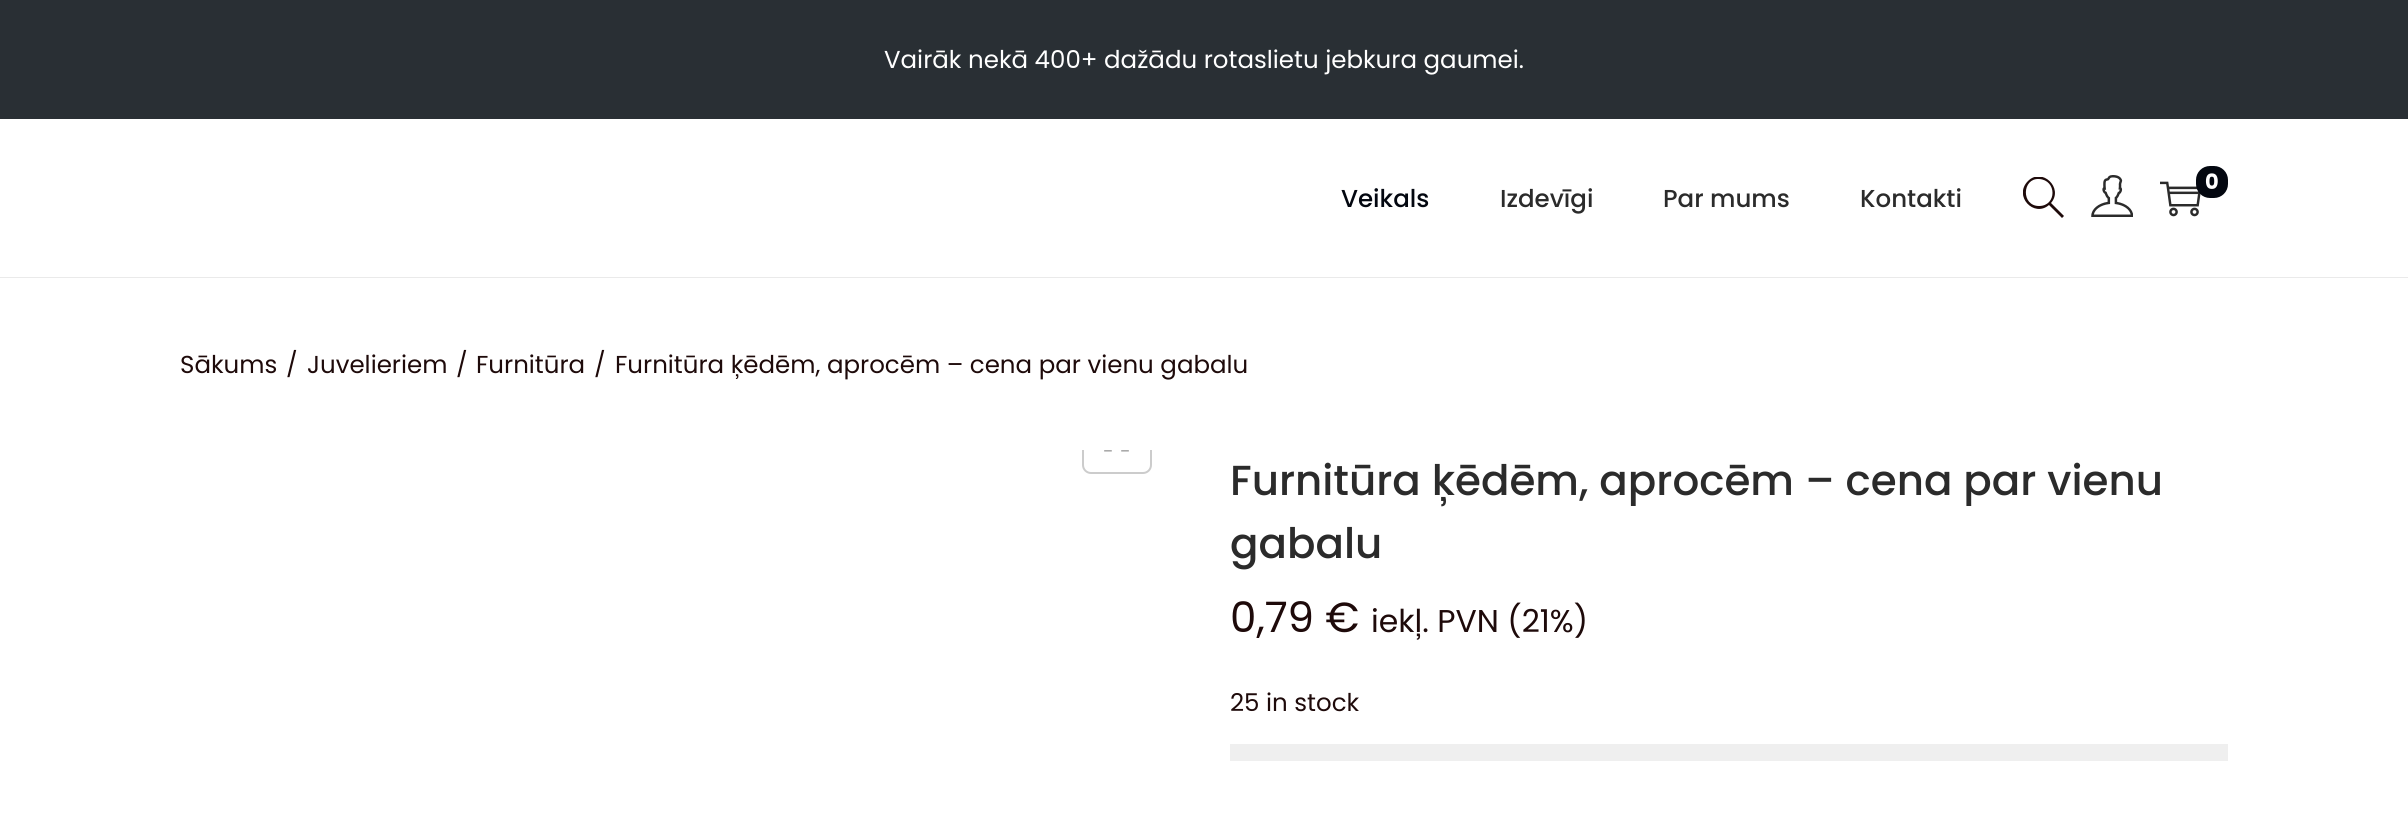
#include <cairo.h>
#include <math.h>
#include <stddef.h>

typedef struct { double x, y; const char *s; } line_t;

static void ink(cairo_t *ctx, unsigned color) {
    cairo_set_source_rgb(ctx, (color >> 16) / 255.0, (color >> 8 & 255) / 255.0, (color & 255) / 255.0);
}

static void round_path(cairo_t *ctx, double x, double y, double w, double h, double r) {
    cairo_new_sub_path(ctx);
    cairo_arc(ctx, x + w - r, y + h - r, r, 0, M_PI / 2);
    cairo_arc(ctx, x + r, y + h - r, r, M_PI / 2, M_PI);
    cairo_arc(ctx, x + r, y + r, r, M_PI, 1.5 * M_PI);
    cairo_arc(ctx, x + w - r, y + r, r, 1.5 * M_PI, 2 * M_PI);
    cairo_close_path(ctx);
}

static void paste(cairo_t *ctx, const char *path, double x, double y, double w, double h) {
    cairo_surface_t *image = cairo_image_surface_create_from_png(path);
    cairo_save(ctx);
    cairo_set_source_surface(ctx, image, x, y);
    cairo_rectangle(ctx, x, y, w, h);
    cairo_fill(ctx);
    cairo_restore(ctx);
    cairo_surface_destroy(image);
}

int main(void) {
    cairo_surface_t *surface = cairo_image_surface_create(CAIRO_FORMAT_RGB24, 2408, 813);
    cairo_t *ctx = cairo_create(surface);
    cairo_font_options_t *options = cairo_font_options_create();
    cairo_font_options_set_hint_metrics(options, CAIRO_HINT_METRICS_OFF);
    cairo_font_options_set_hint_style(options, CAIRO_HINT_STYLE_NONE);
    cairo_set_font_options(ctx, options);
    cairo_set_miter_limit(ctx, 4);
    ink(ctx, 0xFFFFFF);
    cairo_paint(ctx);
    ink(ctx, 0x292F34);
    cairo_rectangle(ctx, 0, 0, 2408, 119);
    cairo_fill(ctx);
    cairo_select_font_face(ctx, "Poppins", CAIRO_FONT_SLANT_NORMAL, CAIRO_FONT_WEIGHT_NORMAL);
    cairo_set_font_size(ctx, 24.5);
    ink(ctx, 0xFFFFFF);
    cairo_move_to(ctx, 884, 68);
    cairo_show_text(ctx, "Vairāk nekā 400+ dažādu rotaslietu jebkura gaumei.");
    ink(ctx, 0xEAEAEA);
    cairo_rectangle(ctx, 0, 277, 2408, 1);
    cairo_fill(ctx);
    cairo_save(ctx);
    cairo_rectangle(ctx, 2023, 177, 42, 42);
    cairo_clip(ctx);
    ink(ctx, 0x1E0A0A);
    cairo_new_path(ctx);
    cairo_move_to(ctx, 2064, 216);
    cairo_line_to(ctx, 2051, 203);
    cairo_curve_to(ctx, 2064, 188, 2042, 167, 2028, 181);
    cairo_curve_to(ctx, 2013, 196, 2034, 218, 2049, 205);
    cairo_line_to(ctx, 2062, 218);
    cairo_close_path(ctx);
    cairo_move_to(ctx, 2039, 206);
    cairo_curve_to(ctx, 2021, 206, 2022, 178, 2039, 179);
    cairo_curve_to(ctx, 2057, 180, 2057, 206, 2039, 206);
    cairo_close_path(ctx);
    cairo_fill(ctx);
    cairo_restore(ctx);
    paste(ctx, "media/1.png", 2091, 175, 42, 42);
    paste(ctx, "media/2.png", 2160, 181, 41, 36);
    ink(ctx, 0x030710);
    round_path(ctx, 2196, 166, 32, 32, 14);
    cairo_fill(ctx);
    cairo_select_font_face(ctx, "Poppins", CAIRO_FONT_SLANT_NORMAL, CAIRO_FONT_WEIGHT_BOLD);
    cairo_set_font_size(ctx, 21);
    ink(ctx, 0xFFFFFF);
    cairo_move_to(ctx, 2205, 189);
    cairo_show_text(ctx, "0");
    cairo_select_font_face(ctx, "Poppins Medium", CAIRO_FONT_SLANT_NORMAL, CAIRO_FONT_WEIGHT_NORMAL);
    cairo_set_font_size(ctx, 24.5);
    ink(ctx, 0x030710);
    cairo_move_to(ctx, 1341, 207);
    cairo_show_text(ctx, "Veikals");
    ink(ctx, 0x2B2B2B);
    {
        static const line_t items[] = {
            {1500, 207, "Izdevīgi"},
            {1663, 207, "Par mums"},
            {1860, 207, "Kontakti"},
        };
        for (size_t i = 0; i < sizeof items / sizeof *items; i++) {
            cairo_move_to(ctx, items[i].x, items[i].y);
            cairo_show_text(ctx, items[i].s);
        }
    }
    cairo_select_font_face(ctx, "Poppins", CAIRO_FONT_SLANT_NORMAL, CAIRO_FONT_WEIGHT_NORMAL);
    ink(ctx, 0x1E0A0A);
    {
        static const line_t items[] = {
            {180, 373, "Sākums"},
            {286, 373, "/"},
            {307, 373, "Juvelieriem"},
            {456, 373, "/"},
            {476, 373, "Furnitūra"},
            {594, 373, "/"},
            {615, 373, "Furnitūra ķēdēm, aprocēm – cena par vienu gabalu"},
        };
        for (size_t i = 0; i < sizeof items / sizeof *items; i++) {
            cairo_move_to(ctx, items[i].x, items[i].y);
            cairo_show_text(ctx, items[i].s);
        }
    }
    cairo_save(ctx);
    cairo_rectangle(ctx, 180, 450, 998, 51);
    cairo_clip(ctx);
    round_path(ctx, 1083, 405, 68, 68, 8);
    ink(ctx, 0xCCCCCC);
    cairo_stroke(ctx);
    cairo_restore(ctx);
    paste(ctx, "media/3.png", 1104, 450, 25, 2);
    cairo_select_font_face(ctx, "Poppins Medium", CAIRO_FONT_SLANT_NORMAL, CAIRO_FONT_WEIGHT_NORMAL);
    cairo_set_font_size(ctx, 42);
    ink(ctx, 0x2B2B2B);
    cairo_move_to(ctx, 1230, 495);
    cairo_show_text(ctx, "Furnitūra ķēdēm, aprocēm – cena par vienu");
    cairo_move_to(ctx, 1230, 558);
    cairo_show_text(ctx, "gabalu");
    cairo_select_font_face(ctx, "Poppins", CAIRO_FONT_SLANT_NORMAL, CAIRO_FONT_WEIGHT_NORMAL);
    ink(ctx, 0x1E0A0A);
    cairo_move_to(ctx, 1230, 632);
    cairo_show_text(ctx, "0,79 €");
    cairo_set_font_size(ctx, 31.5);
    cairo_move_to(ctx, 1371, 632);
    cairo_show_text(ctx, "iekļ. PVN (21%)");
    cairo_set_font_size(ctx, 24.5);
    cairo_move_to(ctx, 1230, 711);
    cairo_show_text(ctx, "25 in stock");
    ink(ctx, 0xEFEFEF);
    cairo_rectangle(ctx, 1230, 744, 998, 17);
    cairo_fill(ctx);
    cairo_surface_write_to_png(surface, "image.png");
    cairo_font_options_destroy(options);
    cairo_destroy(ctx);
    cairo_surface_destroy(surface);
    return 0;
}
